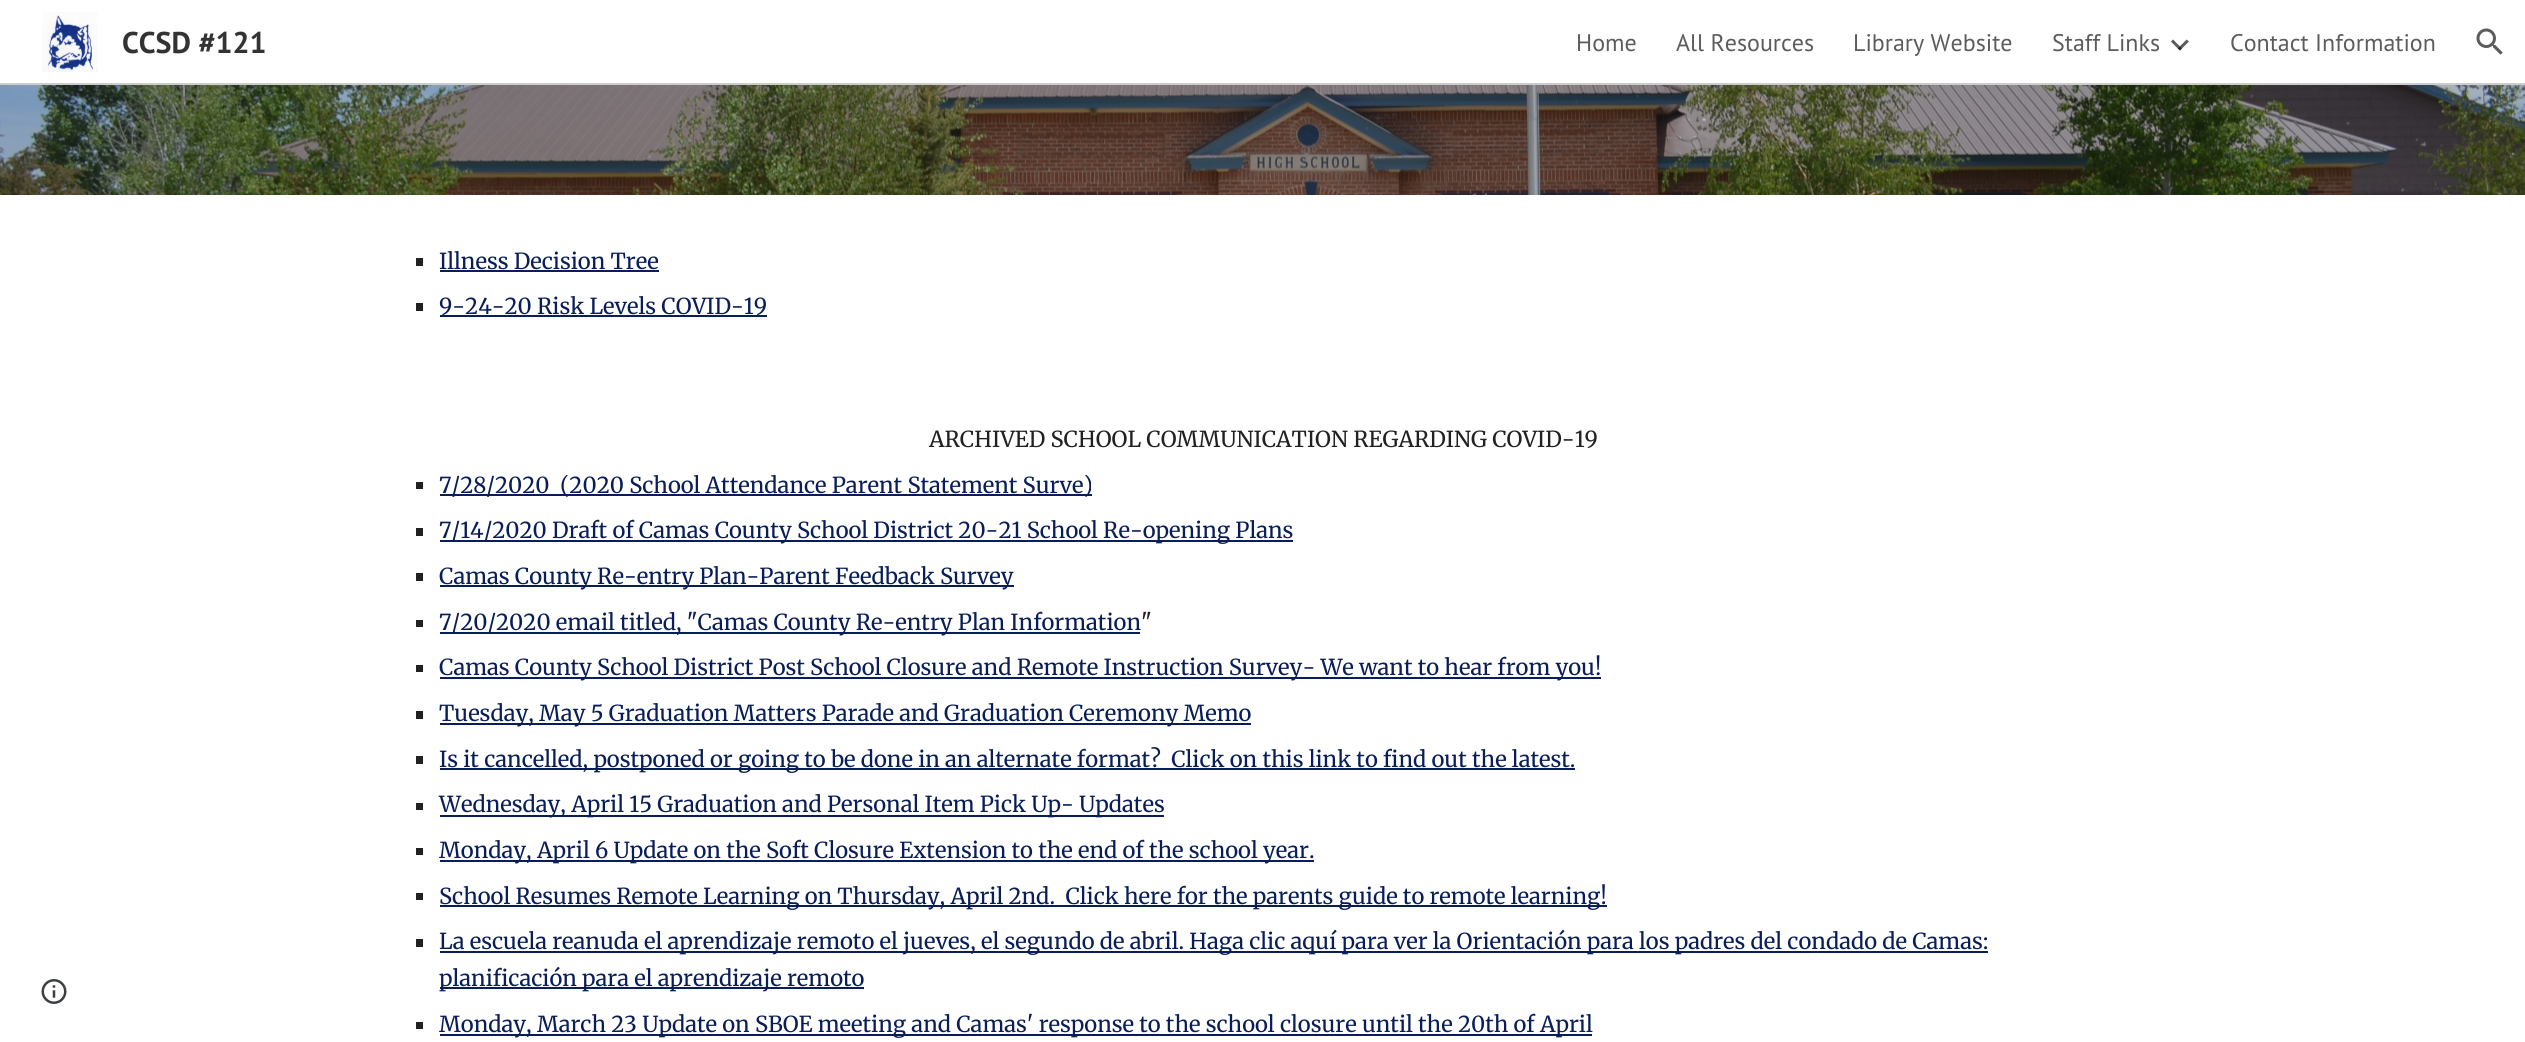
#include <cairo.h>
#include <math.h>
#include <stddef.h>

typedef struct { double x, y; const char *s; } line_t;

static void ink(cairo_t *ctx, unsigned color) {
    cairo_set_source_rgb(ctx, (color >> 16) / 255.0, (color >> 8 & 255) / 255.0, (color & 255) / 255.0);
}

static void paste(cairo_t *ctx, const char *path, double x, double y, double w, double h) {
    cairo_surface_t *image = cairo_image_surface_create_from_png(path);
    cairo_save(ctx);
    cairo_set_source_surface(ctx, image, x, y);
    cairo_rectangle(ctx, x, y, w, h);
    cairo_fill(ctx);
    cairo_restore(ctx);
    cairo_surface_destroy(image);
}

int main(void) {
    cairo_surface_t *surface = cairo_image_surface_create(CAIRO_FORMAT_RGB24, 2525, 1042);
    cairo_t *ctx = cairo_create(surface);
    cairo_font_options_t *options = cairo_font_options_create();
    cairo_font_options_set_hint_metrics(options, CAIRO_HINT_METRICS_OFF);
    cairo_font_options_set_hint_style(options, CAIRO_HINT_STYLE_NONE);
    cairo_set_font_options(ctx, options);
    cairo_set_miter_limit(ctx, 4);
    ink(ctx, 0xFFFFFF);
    cairo_paint(ctx);
    paste(ctx, "media/1.png", 42, 12, 56, 60);
    cairo_select_font_face(ctx, "PT Sans", CAIRO_FONT_SLANT_NORMAL, CAIRO_FONT_WEIGHT_BOLD);
    cairo_set_font_size(ctx, 30);
    ink(ctx, 0x333333);
    cairo_move_to(ctx, 122, 53);
    cairo_show_text(ctx, "CCSD #121");
    cairo_select_font_face(ctx, "PT Sans", CAIRO_FONT_SLANT_NORMAL, CAIRO_FONT_WEIGHT_NORMAL);
    cairo_set_font_size(ctx, 24);
    ink(ctx, 0x5C5C5C);
    {
        static const line_t items[] = {
            {1576, 51, "Home"},
            {1676, 51, "All Resources"},
            {1853, 51, "Library Website"},
            {2052, 51, "Staff Links"},
        };
        for (size_t i = 0; i < sizeof items / sizeof *items; i++) {
            cairo_move_to(ctx, items[i].x, items[i].y);
            cairo_show_text(ctx, items[i].s);
        }
    }
    paste(ctx, "media/2.png", 2171, 39, 18, 12);
    cairo_move_to(ctx, 2230, 51);
    cairo_show_text(ctx, "Contact Information");
    paste(ctx, "media/3.png", 2476, 28, 27, 27);
    ink(ctx, 0xCCCCCC);
    cairo_rectangle(ctx, 0, 83, 2525, 2);
    cairo_fill(ctx);
    paste(ctx, "media/4.png", 41, 979, 26, 25);
    paste(ctx, "media/5.png", 0, 85, 2525, 110);
    ink(ctx, 0x212121);
    cairo_rectangle(ctx, 416, 258, 7, 8);
    cairo_fill(ctx);
    cairo_select_font_face(ctx, "Merriweather", CAIRO_FONT_SLANT_NORMAL, CAIRO_FONT_WEIGHT_NORMAL);
    cairo_set_font_size(ctx, 22);
    ink(ctx, 0x091E59);
    cairo_move_to(ctx, 439, 269);
    cairo_show_text(ctx, "Illness Decision Tree");
    cairo_rectangle(ctx, 440, 270, 219, 2);
    cairo_fill(ctx);
    ink(ctx, 0x212121);
    cairo_rectangle(ctx, 416, 303, 7, 8);
    cairo_fill(ctx);
    ink(ctx, 0x091E59);
    cairo_move_to(ctx, 439, 314);
    cairo_show_text(ctx, "9-24-20 Risk Levels COVID-19");
    cairo_rectangle(ctx, 440, 315, 327, 2);
    cairo_fill(ctx);
    ink(ctx, 0x212121);
    cairo_move_to(ctx, 929, 447);
    cairo_show_text(ctx, "ARCHIVED SCHOOL COMMUNICATION REGARDING COVID-19");
    cairo_rectangle(ctx, 416, 482, 7, 7);
    cairo_fill(ctx);
    ink(ctx, 0x091E59);
    cairo_rectangle(ctx, 440, 494, 652, 2);
    cairo_fill(ctx);
    cairo_move_to(ctx, 439, 493);
    cairo_show_text(ctx, "7/28/2020  (2020 School Attendance Parent Statement Surve)");
    ink(ctx, 0x212121);
    cairo_rectangle(ctx, 416, 528, 7, 8);
    cairo_fill(ctx);
    ink(ctx, 0x091E59);
    cairo_rectangle(ctx, 440, 540, 853, 2);
    cairo_fill(ctx);
    cairo_move_to(ctx, 439, 538);
    cairo_show_text(ctx, "7/14/2020 Draft of Camas County School District 20-21 School Re-opening Plans");
    ink(ctx, 0x212121);
    cairo_rectangle(ctx, 416, 573, 7, 8);
    cairo_fill(ctx);
    ink(ctx, 0x091E59);
    cairo_rectangle(ctx, 440, 585, 574, 2);
    cairo_fill(ctx);
    cairo_move_to(ctx, 439, 584);
    cairo_show_text(ctx, "Camas County Re-entry Plan-Parent Feedback Survey");
    ink(ctx, 0x212121);
    cairo_rectangle(ctx, 416, 620, 7, 7);
    cairo_fill(ctx);
    ink(ctx, 0x091E59);
    cairo_rectangle(ctx, 440, 632, 700, 2);
    cairo_fill(ctx);
    cairo_move_to(ctx, 439, 630);
    cairo_show_text(ctx, "7/20/2020 email titled, \"Camas County Re-entry Plan Information");
    ink(ctx, 0x212121);
    cairo_move_to(ctx, 1141, 630);
    cairo_show_text(ctx, "\"");
    cairo_rectangle(ctx, 416, 665, 7, 7);
    cairo_fill(ctx);
    ink(ctx, 0x091E59);
    cairo_rectangle(ctx, 440, 677, 1161, 2);
    cairo_fill(ctx);
    cairo_move_to(ctx, 439, 675);
    cairo_show_text(ctx, "Camas County School District Post School Closure and Remote Instruction Survey- We want to hear from you!");
    ink(ctx, 0x212121);
    cairo_rectangle(ctx, 416, 711, 7, 8);
    cairo_fill(ctx);
    ink(ctx, 0x091E59);
    cairo_rectangle(ctx, 440, 723, 811, 2);
    cairo_fill(ctx);
    cairo_move_to(ctx, 439, 721);
    cairo_show_text(ctx, "Tuesday, May 5 Graduation Matters Parade and Graduation Ceremony Memo");
    ink(ctx, 0x212121);
    cairo_rectangle(ctx, 416, 756, 7, 8);
    cairo_fill(ctx);
    ink(ctx, 0x091E59);
    cairo_rectangle(ctx, 440, 768, 1135, 2);
    cairo_fill(ctx);
    cairo_move_to(ctx, 439, 767);
    cairo_show_text(ctx, "Is it cancelled, postponed or going to be done in an alternate format?  Click on this link to find out the latest.");
    ink(ctx, 0x212121);
    cairo_rectangle(ctx, 416, 803, 7, 7);
    cairo_fill(ctx);
    ink(ctx, 0x091E59);
    cairo_rectangle(ctx, 440, 815, 724, 2);
    cairo_fill(ctx);
    cairo_move_to(ctx, 439, 812);
    cairo_show_text(ctx, "Wednesday, April 15 Graduation and Personal Item Pick Up- Updates");
    ink(ctx, 0x212121);
    cairo_rectangle(ctx, 416, 848, 7, 7);
    cairo_fill(ctx);
    ink(ctx, 0x091E59);
    cairo_rectangle(ctx, 440, 860, 874, 2);
    cairo_fill(ctx);
    cairo_move_to(ctx, 439, 858);
    cairo_show_text(ctx, "Monday, April 6 Update on the Soft Closure Extension to the end of the school year.");
    ink(ctx, 0x212121);
    cairo_rectangle(ctx, 416, 893, 7, 7);
    cairo_fill(ctx);
    ink(ctx, 0x091E59);
    cairo_rectangle(ctx, 440, 905, 1167, 2);
    cairo_fill(ctx);
    cairo_move_to(ctx, 439, 904);
    cairo_show_text(ctx, "School Resumes Remote Learning on Thursday, April 2nd.  Click here for the parents guide to remote learning!");
    ink(ctx, 0x212121);
    cairo_rectangle(ctx, 416, 939, 7, 8);
    cairo_fill(ctx);
    ink(ctx, 0x091E59);
    cairo_rectangle(ctx, 440, 951, 1548, 2);
    cairo_fill(ctx);
    cairo_move_to(ctx, 439, 949);
    cairo_show_text(ctx, "La escuela reanuda el aprendizaje remoto el jueves, el segundo de abril. Haga clic aquí para ver la Orientación para los padres del condado de Camas:");
    cairo_rectangle(ctx, 440, 987, 424, 2);
    cairo_fill(ctx);
    cairo_move_to(ctx, 439, 986);
    cairo_show_text(ctx, "planificación para el aprendizaje remoto");
    ink(ctx, 0x212121);
    cairo_rectangle(ctx, 416, 1022, 7, 7);
    cairo_fill(ctx);
    ink(ctx, 0x091E59);
    cairo_rectangle(ctx, 440, 1034, 1152, 2);
    cairo_fill(ctx);
    cairo_move_to(ctx, 439, 1032);
    cairo_show_text(ctx, "Monday, March 23 Update on SBOE meeting and Camas' response to the school closure until the 20th of April");
    cairo_surface_write_to_png(surface, "image.png");
    cairo_font_options_destroy(options);
    cairo_destroy(ctx);
    cairo_surface_destroy(surface);
    return 0;
}
